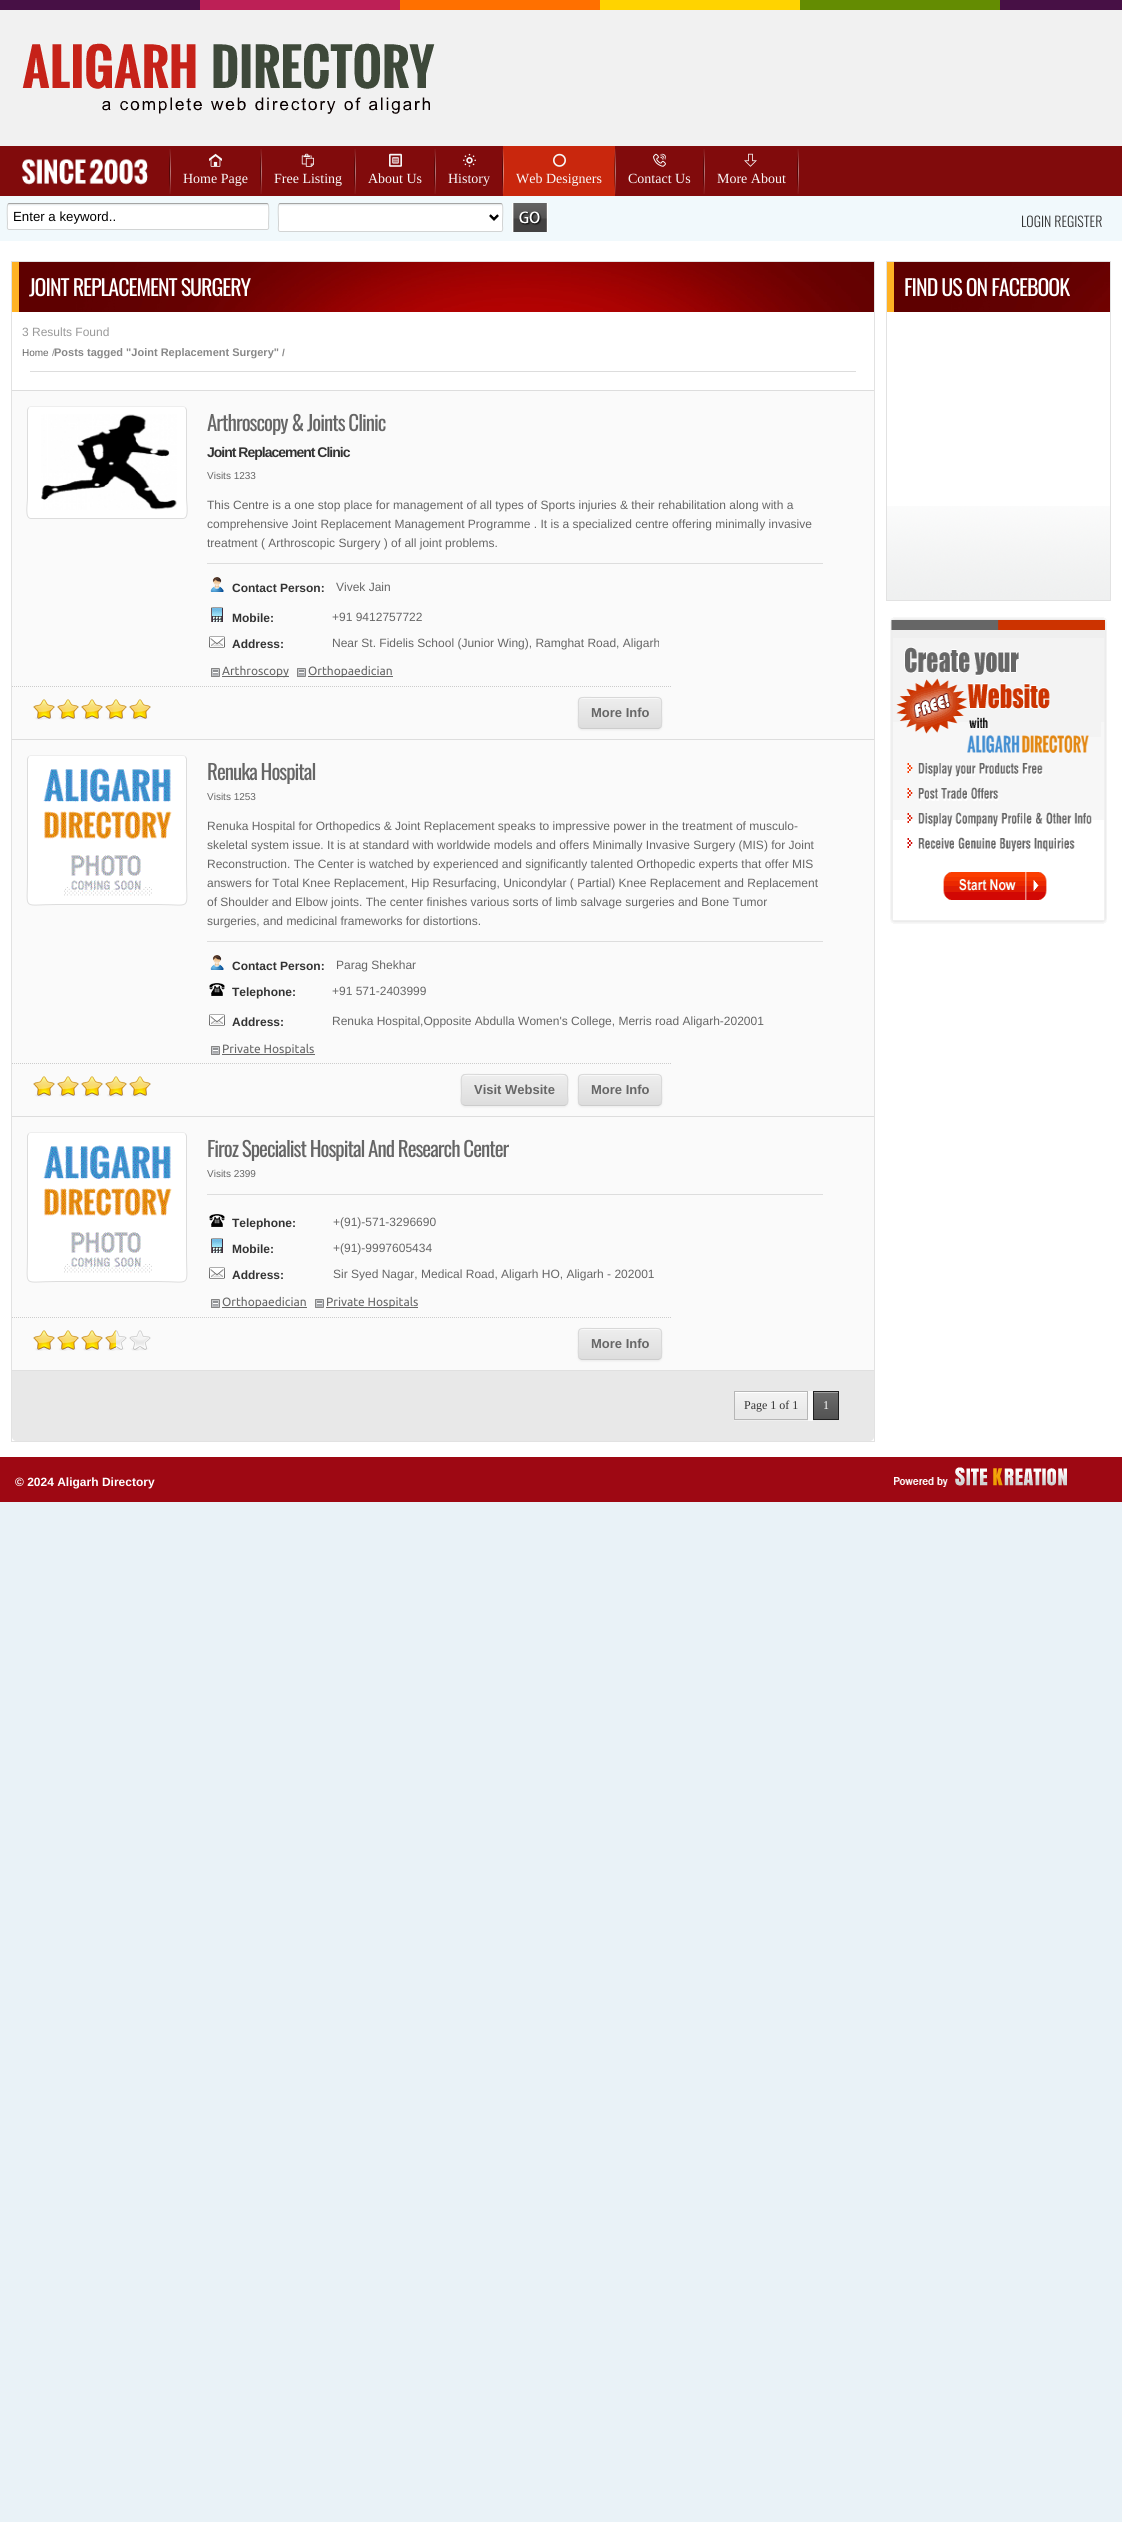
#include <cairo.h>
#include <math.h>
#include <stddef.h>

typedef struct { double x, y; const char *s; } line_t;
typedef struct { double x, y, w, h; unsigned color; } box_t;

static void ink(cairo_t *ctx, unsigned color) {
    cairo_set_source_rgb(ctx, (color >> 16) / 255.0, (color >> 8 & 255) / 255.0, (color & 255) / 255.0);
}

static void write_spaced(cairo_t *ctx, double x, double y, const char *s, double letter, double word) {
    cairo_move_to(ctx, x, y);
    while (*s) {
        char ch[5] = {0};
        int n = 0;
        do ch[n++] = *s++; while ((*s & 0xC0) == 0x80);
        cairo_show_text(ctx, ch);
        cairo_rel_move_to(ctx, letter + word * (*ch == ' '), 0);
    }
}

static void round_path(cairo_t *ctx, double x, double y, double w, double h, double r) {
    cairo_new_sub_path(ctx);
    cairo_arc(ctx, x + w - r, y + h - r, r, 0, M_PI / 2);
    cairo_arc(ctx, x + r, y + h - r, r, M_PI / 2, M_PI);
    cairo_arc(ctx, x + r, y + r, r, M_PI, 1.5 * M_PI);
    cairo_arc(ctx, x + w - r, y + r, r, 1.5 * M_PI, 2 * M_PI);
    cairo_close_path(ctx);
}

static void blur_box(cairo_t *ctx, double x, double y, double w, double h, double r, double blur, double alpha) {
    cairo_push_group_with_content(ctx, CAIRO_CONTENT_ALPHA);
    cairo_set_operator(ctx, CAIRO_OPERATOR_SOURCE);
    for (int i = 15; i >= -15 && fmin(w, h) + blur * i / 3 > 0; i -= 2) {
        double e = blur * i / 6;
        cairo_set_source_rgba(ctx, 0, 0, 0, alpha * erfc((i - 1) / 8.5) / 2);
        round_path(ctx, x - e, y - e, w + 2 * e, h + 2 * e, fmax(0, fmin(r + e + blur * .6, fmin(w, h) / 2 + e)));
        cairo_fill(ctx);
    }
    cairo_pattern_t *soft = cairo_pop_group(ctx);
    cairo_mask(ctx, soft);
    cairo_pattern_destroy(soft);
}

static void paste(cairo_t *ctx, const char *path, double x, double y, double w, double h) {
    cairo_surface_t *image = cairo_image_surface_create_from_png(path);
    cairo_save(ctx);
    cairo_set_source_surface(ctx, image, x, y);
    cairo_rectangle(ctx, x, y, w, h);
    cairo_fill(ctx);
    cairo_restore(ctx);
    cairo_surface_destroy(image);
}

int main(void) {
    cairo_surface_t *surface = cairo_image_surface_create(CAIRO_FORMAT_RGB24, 1122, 2522);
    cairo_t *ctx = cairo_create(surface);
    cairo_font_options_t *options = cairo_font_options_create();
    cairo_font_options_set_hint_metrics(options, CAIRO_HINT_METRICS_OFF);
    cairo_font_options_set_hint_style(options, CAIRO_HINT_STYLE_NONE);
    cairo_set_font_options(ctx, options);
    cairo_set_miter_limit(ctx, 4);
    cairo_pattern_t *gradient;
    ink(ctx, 0xE9F2F7);
    cairo_paint(ctx);
    paste(ctx, "media/1.png", 0, 0, 1122, 10);
    ink(ctx, 0xF1F1F1);
    cairo_rectangle(ctx, 0, 10, 1122, 136);
    cairo_fill(ctx);
    paste(ctx, "media/2.png", 22, 43, 413, 71);
    ink(ctx, 0x810B0C);
    cairo_rectangle(ctx, 0, 146, 1122, 50);
    cairo_fill(ctx);
    paste(ctx, "media/3.png", 22, 159, 126, 26);
    paste(ctx, "media/4.png", 169, 149, 2, 45);
    paste(ctx, "media/5.png", 209, 153, 13, 14);
    cairo_select_font_face(ctx, "Liberation Serif", CAIRO_FONT_SLANT_NORMAL, CAIRO_FONT_WEIGHT_NORMAL);
    cairo_set_font_size(ctx, 14);
    ink(ctx, 0xF8F8F8);
    cairo_move_to(ctx, 183, 183);
    cairo_show_text(ctx, "Home Page");
    paste(ctx, "media/4.png", 260, 149, 2, 45);
    paste(ctx, "media/6.png", 301, 153, 13, 14);
    cairo_move_to(ctx, 274, 183);
    cairo_show_text(ctx, "Free Listing");
    paste(ctx, "media/4.png", 354, 149, 2, 45);
    paste(ctx, "media/7.png", 389, 153, 13, 14);
    cairo_move_to(ctx, 368, 183);
    cairo_show_text(ctx, "About Us");
    paste(ctx, "media/4.png", 434, 149, 2, 45);
    paste(ctx, "media/8.png", 463, 153, 13, 14);
    cairo_move_to(ctx, 448, 183);
    cairo_show_text(ctx, "History");
    ink(ctx, 0xC9270D);
    cairo_rectangle(ctx, 503, 146, 112, 50);
    cairo_fill(ctx);
    paste(ctx, "media/9.png", 502, 149, 2, 45);
    paste(ctx, "media/10.png", 553, 153, 13, 14);
    ink(ctx, 0xF8F8F8);
    cairo_move_to(ctx, 516, 183);
    cairo_show_text(ctx, "Web Designers");
    paste(ctx, "media/11.png", 614, 149, 2, 45);
    paste(ctx, "media/12.png", 653, 153, 13, 14);
    cairo_move_to(ctx, 628, 183);
    cairo_show_text(ctx, "Contact Us");
    paste(ctx, "media/4.png", 703, 149, 2, 45);
    paste(ctx, "media/13.png", 744, 153, 13, 14);
    paste(ctx, "media/4.png", 797, 149, 2, 45);
    cairo_move_to(ctx, 717, 183);
    cairo_show_text(ctx, "More About");
    ink(ctx, 0xF1F9FC);
    cairo_rectangle(ctx, 0, 196, 1122, 45);
    cairo_fill(ctx);
    ink(ctx, 0xFFFFFF);
    round_path(ctx, 7, 203, 262, 27, 2);
    cairo_fill(ctx);
    paste(ctx, "media/14.png", 7, 204, 262, 2);
    cairo_new_path(ctx);
    cairo_move_to(ctx, 8, 204);
    cairo_line_to(ctx, 9, 203.5);
    cairo_line_to(ctx, 267, 203.5);
    cairo_line_to(ctx, 268, 204);
    ink(ctx, 0xA5A6A6);
    cairo_set_line_width(ctx, 1);
    cairo_stroke(ctx);
    cairo_new_path(ctx);
    cairo_move_to(ctx, 268, 204);
    cairo_curve_to(ctx, 269.5, 205, 268.5, 221.5, 268.5, 224);
    cairo_curve_to(ctx, 268.5, 225, 269.5, 229.5, 267, 229.5);
    cairo_line_to(ctx, 9, 229.5);
    cairo_curve_to(ctx, 6.5, 229.5, 7.5, 225, 7.5, 224);
    cairo_curve_to(ctx, 7.5, 221.5, 6.5, 205, 8, 204);
    ink(ctx, 0xD2D4D4);
    cairo_stroke(ctx);
    cairo_select_font_face(ctx, "Liberation Sans", CAIRO_FONT_SLANT_NORMAL, CAIRO_FONT_WEIGHT_NORMAL);
    cairo_set_font_size(ctx, 13.25);
    ink(ctx, 0x000000);
    cairo_move_to(ctx, 13, 221);
    cairo_show_text(ctx, "Enter a keyword..");
    ink(ctx, 0xFFFFFF);
    round_path(ctx, 278, 203, 225, 29, 2);
    cairo_fill(ctx);
    paste(ctx, "media/15.png", 278, 204, 225, 17);
    cairo_new_path(ctx);
    cairo_move_to(ctx, 279, 204);
    cairo_line_to(ctx, 280, 203.5);
    cairo_line_to(ctx, 501, 203.5);
    cairo_line_to(ctx, 502, 204);
    ink(ctx, 0xA5A6A6);
    cairo_stroke(ctx);
    cairo_new_path(ctx);
    cairo_move_to(ctx, 502, 204);
    cairo_curve_to(ctx, 503.5, 205, 502.5, 219, 502.5, 221.5);
    cairo_line_to(ctx, 502.5, 226);
    cairo_curve_to(ctx, 502.5, 226.5, 503.5, 231.5, 501, 231.5);
    cairo_line_to(ctx, 280, 231.5);
    cairo_curve_to(ctx, 277.5, 231.5, 278.5, 226.5, 278.5, 226);
    cairo_line_to(ctx, 278.5, 221.5);
    cairo_curve_to(ctx, 278.5, 219, 277.5, 205, 279, 204);
    ink(ctx, 0xD2D4D4);
    cairo_stroke(ctx);
    cairo_new_path(ctx);
    cairo_move_to(ctx, 490, 215.5);
    cairo_line_to(ctx, 494, 219.5);
    cairo_line_to(ctx, 498, 215.5);
    ink(ctx, 0x000000);
    cairo_set_line_width(ctx, 2);
    cairo_stroke(ctx);
    paste(ctx, "media/16.png", 512, 203, 36, 29);
    cairo_select_font_face(ctx, "Oswald Light", CAIRO_FONT_SLANT_NORMAL, CAIRO_FONT_WEIGHT_NORMAL);
    cairo_set_font_size(ctx, 14);
    ink(ctx, 0x333333);
    cairo_move_to(ctx, 1021, 227);
    cairo_show_text(ctx, "LOGIN REGISTER");
    ink(ctx, 0xFFFFFF);
    cairo_rectangle(ctx, 0, 241, 1122, 1216);
    cairo_fill(ctx);
    cairo_rectangle(ctx, 11.5, 261.5, 863, 1180);
    ink(ctx, 0xE2E2E2);
    cairo_set_line_width(ctx, 1);
    cairo_stroke(ctx);
    paste(ctx, "media/17.png", 19, 262, 855, 50);
    ink(ctx, 0xFFB224);
    cairo_rectangle(ctx, 12, 262, 7, 50);
    cairo_fill(ctx);
    cairo_select_font_face(ctx, "Oswald", CAIRO_FONT_SLANT_NORMAL, CAIRO_FONT_WEIGHT_NORMAL);
    cairo_set_font_size(ctx, 22);
    ink(ctx, 0xFFFFFF);
    write_spaced(ctx, 29, 296, "JOINT REPLACEMENT SURGERY", -1, 0);
    cairo_select_font_face(ctx, "Liberation Sans", CAIRO_FONT_SLANT_NORMAL, CAIRO_FONT_WEIGHT_NORMAL);
    cairo_set_font_size(ctx, 12);
    ink(ctx, 0x999999);
    cairo_move_to(ctx, 22, 336);
    cairo_show_text(ctx, "3 Results Found");
    cairo_set_font_size(ctx, 10);
    ink(ctx, 0x666666);
    cairo_move_to(ctx, 22, 356);
    cairo_show_text(ctx, "Home");
    ink(ctx, 0x888888);
    cairo_move_to(ctx, 52, 356);
    cairo_show_text(ctx, "/");
    cairo_select_font_face(ctx, "Liberation Sans", CAIRO_FONT_SLANT_NORMAL, CAIRO_FONT_WEIGHT_BOLD);
    cairo_set_font_size(ctx, 11);
    cairo_move_to(ctx, 54, 356);
    cairo_show_text(ctx, "Posts tagged \"Joint Replacement Surgery\"");
    cairo_set_font_size(ctx, 10);
    cairo_move_to(ctx, 282, 356);
    cairo_show_text(ctx, "/");
    {
        static const box_t items[] = {
            {30, 371, 826, 1, 0xDDDDDD},
            {12, 391, 862, 348, 0xFAFAFA},
            {12, 390, 862, 1, 0xDDDDDD},
        };
        for (size_t i = 0; i < sizeof items / sizeof *items; i++) {
            ink(ctx, items[i].color);
            cairo_rectangle(ctx, items[i].x, items[i].y, items[i].w, items[i].h);
            cairo_fill(ctx);
        }
    }
    ink(ctx, 0xFFFFFF);
    round_path(ctx, 27, 406, 160, 113, 4);
    cairo_fill(ctx);
    cairo_new_path(ctx);
    cairo_move_to(ctx, 28.5, 407.5);
    cairo_curve_to(ctx, 29, 407, 30, 406.5, 31, 406.5);
    cairo_line_to(ctx, 183, 406.5);
    cairo_curve_to(ctx, 184, 406.5, 185, 407, 185.5, 407.5);
    ink(ctx, 0xEEEEEE);
    cairo_stroke(ctx);
    cairo_new_path(ctx);
    cairo_move_to(ctx, 185.5, 407.5);
    cairo_line_to(ctx, 186.5, 410);
    cairo_line_to(ctx, 186.5, 497.5);
    cairo_curve_to(ctx, 186.5, 504.5, 189.5, 518.5, 183, 518.5);
    cairo_line_to(ctx, 31, 518.5);
    cairo_curve_to(ctx, 24.5, 518.5, 27.5, 504.5, 27.5, 497.5);
    cairo_line_to(ctx, 27.5, 410);
    cairo_line_to(ctx, 28.5, 407.5);
    ink(ctx, 0xDDDDDD);
    cairo_stroke(ctx);
    paste(ctx, "media/18.png", 41, 414, 136, 96);
    cairo_select_font_face(ctx, "Oswald", CAIRO_FONT_SLANT_NORMAL, CAIRO_FONT_WEIGHT_NORMAL);
    cairo_set_font_size(ctx, 21);
    ink(ctx, 0x666666);
    write_spaced(ctx, 207, 431, "Arthroscopy & Joints Clinic", -1, 0);
    cairo_select_font_face(ctx, "Liberation Sans", CAIRO_FONT_SLANT_NORMAL, CAIRO_FONT_WEIGHT_BOLD);
    cairo_set_font_size(ctx, 14);
    ink(ctx, 0x333333);
    write_spaced(ctx, 207, 457, "Joint Replacement Clinic", -1, 0);
    cairo_select_font_face(ctx, "Liberation Sans", CAIRO_FONT_SLANT_NORMAL, CAIRO_FONT_WEIGHT_NORMAL);
    cairo_set_font_size(ctx, 10);
    ink(ctx, 0x666666);
    cairo_move_to(ctx, 207, 479);
    cairo_show_text(ctx, "Visits 1233");
    cairo_set_font_size(ctx, 12);
    {
        static const line_t items[] = {
            {207, 509, "This Centre is a one stop place for management of all types of Sports injuries & their rehabilitation along with a"},
            {207, 528, "comprehensive Joint Replacement Management Programme . It is a specialized centre offering minimally invasive"},
            {207, 547, "treatment ( Arthroscopic Surgery ) of all joint problems."},
        };
        for (size_t i = 0; i < sizeof items / sizeof *items; i++) {
            cairo_move_to(ctx, items[i].x, items[i].y);
            cairo_show_text(ctx, items[i].s);
        }
    }
    ink(ctx, 0xDDDDDD);
    cairo_rectangle(ctx, 207, 563, 616, 1);
    cairo_fill(ctx);
    paste(ctx, "media/19.png", 210, 577, 14, 15);
    cairo_select_font_face(ctx, "Liberation Sans", CAIRO_FONT_SLANT_NORMAL, CAIRO_FONT_WEIGHT_BOLD);
    ink(ctx, 0x333333);
    cairo_move_to(ctx, 232, 592);
    cairo_show_text(ctx, "Contact Person:");
    cairo_select_font_face(ctx, "Liberation Sans", CAIRO_FONT_SLANT_NORMAL, CAIRO_FONT_WEIGHT_NORMAL);
    ink(ctx, 0x666666);
    cairo_move_to(ctx, 336, 591);
    cairo_show_text(ctx, "Vivek Jain");
    paste(ctx, "media/20.png", 211, 607, 12, 15);
    cairo_select_font_face(ctx, "Liberation Sans", CAIRO_FONT_SLANT_NORMAL, CAIRO_FONT_WEIGHT_BOLD);
    ink(ctx, 0x333333);
    cairo_move_to(ctx, 232, 622);
    cairo_show_text(ctx, "Mobile:");
    cairo_select_font_face(ctx, "Liberation Sans", CAIRO_FONT_SLANT_NORMAL, CAIRO_FONT_WEIGHT_NORMAL);
    ink(ctx, 0x666666);
    cairo_move_to(ctx, 332, 621);
    cairo_show_text(ctx, "+91 9412757722");
    paste(ctx, "media/21.png", 209, 636, 16, 12);
    cairo_select_font_face(ctx, "Liberation Sans", CAIRO_FONT_SLANT_NORMAL, CAIRO_FONT_WEIGHT_BOLD);
    ink(ctx, 0x333333);
    cairo_move_to(ctx, 232, 648);
    cairo_show_text(ctx, "Address:");
    cairo_select_font_face(ctx, "Liberation Sans", CAIRO_FONT_SLANT_NORMAL, CAIRO_FONT_WEIGHT_NORMAL);
    ink(ctx, 0x666666);
    cairo_move_to(ctx, 332, 647);
    cairo_show_text(ctx, "Near St. Fidelis School (Junior Wing), Ramghat Road, Aligarh");
    paste(ctx, "media/22.png", 211, 668, 9, 9);
    cairo_rectangle(ctx, 222, 676, 67, 1);
    cairo_fill(ctx);
    cairo_select_font_face(ctx, "Ubuntu", CAIRO_FONT_SLANT_NORMAL, CAIRO_FONT_WEIGHT_NORMAL);
    cairo_move_to(ctx, 222, 675);
    cairo_show_text(ctx, "Arthroscopy");
    paste(ctx, "media/22.png", 297, 668, 9, 9);
    cairo_rectangle(ctx, 308, 676, 85, 1);
    cairo_fill(ctx);
    cairo_move_to(ctx, 308, 675);
    cairo_show_text(ctx, "Orthopaedician");
    cairo_new_path(ctx);
    cairo_move_to(ctx, 12, 686.5);
    cairo_line_to(ctx, 672, 686.5);
    ink(ctx, 0xCCCCCC);
    cairo_set_dash(ctx, (double[]){1, 1}, 2, 0);
    cairo_stroke(ctx);
    paste(ctx, "media/23.png", 33, 699, 118, 21);
    paste(ctx, "media/24.png", 33, 699, 118, 20);
    ink(ctx, 0xAAAAAA);
    blur_box(ctx, 578, 698, 84, 32, 4, 1, 0.2);
    cairo_save(ctx);
    round_path(ctx, 578, 697, 84, 32, 4);
    cairo_clip(ctx);
    gradient = cairo_pattern_create_linear(620, 698, 620, 728);
    cairo_pattern_add_color_stop_rgba(gradient, 0, 0.933, 0.933, 0.933, 1);
    cairo_pattern_add_color_stop_rgba(gradient, 1, 0.867, 0.867, 0.867, 1);
    cairo_set_source(ctx, gradient);
    cairo_pattern_destroy(gradient);
    cairo_rectangle(ctx, 578, 698, 84, 30);
    cairo_fill(ctx);
    cairo_restore(ctx);
    ink(ctx, 0xF8F8F8);
    cairo_new_path(ctx);
    cairo_move_to(ctx, 582, 699);
    cairo_line_to(ctx, 658, 699);
    cairo_curve_to(ctx, 660, 699, 661, 700, 661, 702);
    cairo_curve_to(ctx, 661, 695, 649, 698, 645, 698);
    cairo_line_to(ctx, 595, 698);
    cairo_curve_to(ctx, 591, 698, 579, 695, 579, 702);
    cairo_curve_to(ctx, 579, 700, 580, 699, 582, 699);
    cairo_close_path(ctx);
    cairo_fill(ctx);
    cairo_new_path(ctx);
    cairo_move_to(ctx, 660.5, 727.5);
    cairo_line_to(ctx, 658.5, 728.5);
    cairo_line_to(ctx, 581.5, 728.5);
    cairo_line_to(ctx, 579.5, 727.5);
    ink(ctx, 0xCCCCCC);
    cairo_set_dash(ctx, NULL, 0, 0);
    cairo_stroke(ctx);
    cairo_new_path(ctx);
    cairo_move_to(ctx, 579.5, 727.5);
    cairo_curve_to(ctx, 577.5, 725, 578.5, 716, 578.5, 713);
    cairo_curve_to(ctx, 578.5, 695, 576, 697.5, 594.5, 697.5);
    cairo_line_to(ctx, 645.5, 697.5);
    cairo_curve_to(ctx, 664, 697.5, 661.5, 695, 661.5, 713);
    cairo_curve_to(ctx, 661.5, 716, 662.5, 725, 660.5, 727.5);
    ink(ctx, 0xD8D8D8);
    cairo_stroke(ctx);
    cairo_select_font_face(ctx, "Liberation Sans", CAIRO_FONT_SLANT_NORMAL, CAIRO_FONT_WEIGHT_BOLD);
    cairo_set_font_size(ctx, 13);
    ink(ctx, 0x666666);
    cairo_move_to(ctx, 591, 717);
    cairo_show_text(ctx, "More Info");
    ink(ctx, 0xFAFAFA);
    cairo_rectangle(ctx, 12, 740, 862, 376);
    cairo_fill(ctx);
    ink(ctx, 0xDDDDDD);
    cairo_rectangle(ctx, 12, 739, 862, 1);
    cairo_fill(ctx);
    ink(ctx, 0xFFFFFF);
    round_path(ctx, 27, 755, 160, 150, 4);
    cairo_fill(ctx);
    cairo_new_path(ctx);
    cairo_move_to(ctx, 28.5, 756.5);
    cairo_curve_to(ctx, 29, 756, 30, 755.5, 31, 755.5);
    cairo_line_to(ctx, 183, 755.5);
    cairo_curve_to(ctx, 184, 755.5, 185, 756, 185.5, 756.5);
    ink(ctx, 0xEEEEEE);
    cairo_stroke(ctx);
    cairo_new_path(ctx);
    cairo_move_to(ctx, 185.5, 756.5);
    cairo_line_to(ctx, 186.5, 759);
    cairo_line_to(ctx, 186.5, 877.5);
    cairo_curve_to(ctx, 186.5, 911.5, 192.5, 904.5, 157.5, 904.5);
    cairo_line_to(ctx, 56.5, 904.5);
    cairo_curve_to(ctx, 21.5, 904.5, 27.5, 911.5, 27.5, 877.5);
    cairo_line_to(ctx, 27.5, 759);
    cairo_line_to(ctx, 28.5, 756.5);
    ink(ctx, 0xDDDDDD);
    cairo_stroke(ctx);
    paste(ctx, "media/25.png", 43, 768, 129, 128);
    cairo_select_font_face(ctx, "Oswald", CAIRO_FONT_SLANT_NORMAL, CAIRO_FONT_WEIGHT_NORMAL);
    cairo_set_font_size(ctx, 21);
    ink(ctx, 0x666666);
    write_spaced(ctx, 207, 780, "Renuka Hospital", -1, 0);
    cairo_select_font_face(ctx, "Liberation Sans", CAIRO_FONT_SLANT_NORMAL, CAIRO_FONT_WEIGHT_NORMAL);
    cairo_set_font_size(ctx, 10);
    cairo_move_to(ctx, 207, 800);
    cairo_show_text(ctx, "Visits 1253");
    cairo_set_font_size(ctx, 12);
    {
        static const line_t items[] = {
            {207, 830, "Renuka Hospital for Orthopedics & Joint Replacement speaks to impressive power in the treatment of musculo-"},
            {207, 849, "skeletal system issue. It is at standard with worldwide models and offers Minimally Invasive Surgery (MIS) for Joint"},
            {207, 868, "Reconstruction. The Center is watched by experienced and significantly talented Orthopedic experts that offer MIS"},
            {207, 887, "answers for Total Knee Replacement, Hip Resurfacing, Unicondylar ( Partial) Knee Replacement and Replacement"},
            {207, 906, "of Shoulder and Elbow joints. The center finishes various sorts of limb salvage surgeries and Bone Tumor"},
            {207, 925, "surgeries, and medicinal frameworks for distortions."},
        };
        for (size_t i = 0; i < sizeof items / sizeof *items; i++) {
            cairo_move_to(ctx, items[i].x, items[i].y);
            cairo_show_text(ctx, items[i].s);
        }
    }
    ink(ctx, 0xDDDDDD);
    cairo_rectangle(ctx, 207, 941, 616, 1);
    cairo_fill(ctx);
    paste(ctx, "media/19.png", 210, 955, 14, 15);
    cairo_select_font_face(ctx, "Liberation Sans", CAIRO_FONT_SLANT_NORMAL, CAIRO_FONT_WEIGHT_BOLD);
    ink(ctx, 0x333333);
    cairo_move_to(ctx, 232, 970);
    cairo_show_text(ctx, "Contact Person:");
    cairo_select_font_face(ctx, "Liberation Sans", CAIRO_FONT_SLANT_NORMAL, CAIRO_FONT_WEIGHT_NORMAL);
    ink(ctx, 0x666666);
    cairo_move_to(ctx, 336, 969);
    cairo_show_text(ctx, "Parag Shekhar");
    paste(ctx, "media/26.png", 209, 983, 16, 13);
    cairo_select_font_face(ctx, "Liberation Sans", CAIRO_FONT_SLANT_NORMAL, CAIRO_FONT_WEIGHT_BOLD);
    ink(ctx, 0x333333);
    cairo_move_to(ctx, 232, 996);
    cairo_show_text(ctx, "Telephone:");
    cairo_select_font_face(ctx, "Liberation Sans", CAIRO_FONT_SLANT_NORMAL, CAIRO_FONT_WEIGHT_NORMAL);
    ink(ctx, 0x666666);
    cairo_move_to(ctx, 332, 995);
    cairo_show_text(ctx, "+91 571-2403999");
    paste(ctx, "media/21.png", 209, 1014, 16, 12);
    cairo_select_font_face(ctx, "Liberation Sans", CAIRO_FONT_SLANT_NORMAL, CAIRO_FONT_WEIGHT_BOLD);
    ink(ctx, 0x333333);
    cairo_move_to(ctx, 232, 1026);
    cairo_show_text(ctx, "Address:");
    cairo_select_font_face(ctx, "Liberation Sans", CAIRO_FONT_SLANT_NORMAL, CAIRO_FONT_WEIGHT_NORMAL);
    ink(ctx, 0x666666);
    cairo_move_to(ctx, 332, 1025);
    cairo_show_text(ctx, "Renuka Hospital,Opposite Abdulla Women's College, Merris road Aligarh-202001");
    paste(ctx, "media/22.png", 211, 1046, 9, 9);
    cairo_rectangle(ctx, 222, 1054, 93, 1);
    cairo_fill(ctx);
    cairo_select_font_face(ctx, "Ubuntu", CAIRO_FONT_SLANT_NORMAL, CAIRO_FONT_WEIGHT_NORMAL);
    cairo_move_to(ctx, 222, 1053);
    cairo_show_text(ctx, "Private Hospitals");
    cairo_new_path(ctx);
    cairo_move_to(ctx, 12, 1063.5);
    cairo_line_to(ctx, 672, 1063.5);
    ink(ctx, 0xCCCCCC);
    cairo_set_dash(ctx, (double[]){1, 1}, 2, 0);
    cairo_stroke(ctx);
    paste(ctx, "media/23.png", 33, 1076, 118, 21);
    paste(ctx, "media/24.png", 33, 1076, 118, 20);
    ink(ctx, 0xAAAAAA);
    blur_box(ctx, 461, 1075, 107, 32, 4, 1, 0.2);
    cairo_save(ctx);
    round_path(ctx, 461, 1074, 107, 32, 4);
    cairo_clip(ctx);
    gradient = cairo_pattern_create_linear(515, 1045, 515, 1075);
    cairo_pattern_add_color_stop_rgba(gradient, 0, 0.933, 0.933, 0.933, 1);
    cairo_pattern_add_color_stop_rgba(gradient, 1, 0.867, 0.867, 0.867, 1);
    cairo_set_source(ctx, gradient);
    cairo_pattern_destroy(gradient);
    cairo_rectangle(ctx, 461, 1074, 107, 1);
    cairo_fill(ctx);
    gradient = cairo_pattern_create_linear(515, 1075, 515, 1105);
    cairo_pattern_add_color_stop_rgba(gradient, 0, 0.933, 0.933, 0.933, 1);
    cairo_pattern_add_color_stop_rgba(gradient, 1, 0.867, 0.867, 0.867, 1);
    cairo_set_source(ctx, gradient);
    cairo_pattern_destroy(gradient);
    cairo_rectangle(ctx, 461, 1075, 107, 30);
    cairo_fill(ctx);
    gradient = cairo_pattern_create_linear(515, 1105, 515, 1135);
    cairo_pattern_add_color_stop_rgba(gradient, 0, 0.933, 0.933, 0.933, 1);
    cairo_pattern_add_color_stop_rgba(gradient, 1, 0.867, 0.867, 0.867, 1);
    cairo_set_source(ctx, gradient);
    cairo_pattern_destroy(gradient);
    cairo_rectangle(ctx, 461, 1105, 107, 1);
    cairo_fill(ctx);
    cairo_restore(ctx);
    ink(ctx, 0xF8F8F8);
    cairo_new_path(ctx);
    cairo_move_to(ctx, 465, 1076);
    cairo_line_to(ctx, 564, 1076);
    cairo_curve_to(ctx, 566, 1076, 567, 1077, 567, 1079);
    cairo_curve_to(ctx, 567, 1071, 550, 1075, 548, 1075);
    cairo_line_to(ctx, 482, 1075);
    cairo_curve_to(ctx, 479, 1075, 462, 1071, 462, 1079);
    cairo_curve_to(ctx, 462, 1077, 463, 1076, 465, 1076);
    cairo_close_path(ctx);
    cairo_fill(ctx);
    cairo_new_path(ctx);
    cairo_move_to(ctx, 566.5, 1104.5);
    cairo_line_to(ctx, 564.5, 1105.5);
    cairo_line_to(ctx, 481.5, 1105.5);
    cairo_line_to(ctx, 465, 1105.5);
    cairo_line_to(ctx, 462.5, 1104.5);
    ink(ctx, 0xCCCCCC);
    cairo_set_dash(ctx, NULL, 0, 0);
    cairo_stroke(ctx);
    cairo_new_path(ctx);
    cairo_move_to(ctx, 462.5, 1104.5);
    cairo_curve_to(ctx, 460, 1102, 461.5, 1097, 461.5, 1094);
    cairo_curve_to(ctx, 461.5, 1071, 457.5, 1074.5, 481.5, 1074.5);
    cairo_line_to(ctx, 547.5, 1074.5);
    cairo_curve_to(ctx, 571.5, 1074.5, 567.5, 1071, 567.5, 1094);
    cairo_curve_to(ctx, 567.5, 1097, 569, 1102, 566.5, 1104.5);
    ink(ctx, 0xD8D8D8);
    cairo_stroke(ctx);
    cairo_select_font_face(ctx, "Liberation Sans", CAIRO_FONT_SLANT_NORMAL, CAIRO_FONT_WEIGHT_BOLD);
    cairo_set_font_size(ctx, 13);
    ink(ctx, 0x666666);
    cairo_move_to(ctx, 474, 1094);
    cairo_show_text(ctx, "Visit Website");
    ink(ctx, 0xAAAAAA);
    blur_box(ctx, 578, 1075, 84, 32, 4, 1, 0.2);
    cairo_save(ctx);
    round_path(ctx, 578, 1074, 84, 32, 4);
    cairo_clip(ctx);
    gradient = cairo_pattern_create_linear(620, 1075, 620, 1105);
    cairo_pattern_add_color_stop_rgba(gradient, 0, 0.933, 0.933, 0.933, 1);
    cairo_pattern_add_color_stop_rgba(gradient, 1, 0.867, 0.867, 0.867, 1);
    cairo_set_source(ctx, gradient);
    cairo_pattern_destroy(gradient);
    cairo_rectangle(ctx, 578, 1075, 84, 30);
    cairo_fill(ctx);
    cairo_restore(ctx);
    ink(ctx, 0xF8F8F8);
    cairo_new_path(ctx);
    cairo_move_to(ctx, 582, 1076);
    cairo_line_to(ctx, 658, 1076);
    cairo_curve_to(ctx, 660, 1076, 661, 1077, 661, 1079);
    cairo_curve_to(ctx, 661, 1072, 649, 1075, 645, 1075);
    cairo_line_to(ctx, 595, 1075);
    cairo_curve_to(ctx, 591, 1075, 579, 1072, 579, 1079);
    cairo_curve_to(ctx, 579, 1077, 580, 1076, 582, 1076);
    cairo_close_path(ctx);
    cairo_fill(ctx);
    cairo_new_path(ctx);
    cairo_move_to(ctx, 660.5, 1104.5);
    cairo_line_to(ctx, 658.5, 1105.5);
    cairo_line_to(ctx, 581.5, 1105.5);
    cairo_line_to(ctx, 579.5, 1104.5);
    ink(ctx, 0xCCCCCC);
    cairo_stroke(ctx);
    cairo_new_path(ctx);
    cairo_move_to(ctx, 579.5, 1104.5);
    cairo_curve_to(ctx, 577.5, 1102, 578.5, 1093, 578.5, 1090);
    cairo_curve_to(ctx, 578.5, 1072, 576, 1074.5, 594.5, 1074.5);
    cairo_line_to(ctx, 645.5, 1074.5);
    cairo_curve_to(ctx, 664, 1074.5, 661.5, 1072, 661.5, 1090);
    cairo_curve_to(ctx, 661.5, 1093, 662.5, 1102, 660.5, 1104.5);
    ink(ctx, 0xD8D8D8);
    cairo_stroke(ctx);
    ink(ctx, 0x666666);
    cairo_move_to(ctx, 591, 1094);
    cairo_show_text(ctx, "More Info");
    ink(ctx, 0xFAFAFA);
    cairo_rectangle(ctx, 12, 1117, 862, 253);
    cairo_fill(ctx);
    ink(ctx, 0xDDDDDD);
    cairo_rectangle(ctx, 12, 1116, 862, 1);
    cairo_fill(ctx);
    ink(ctx, 0xFFFFFF);
    round_path(ctx, 27, 1132, 160, 150, 4);
    cairo_fill(ctx);
    cairo_new_path(ctx);
    cairo_move_to(ctx, 28.5, 1133.5);
    cairo_curve_to(ctx, 29, 1133, 30, 1132.5, 31, 1132.5);
    cairo_line_to(ctx, 183, 1132.5);
    cairo_curve_to(ctx, 184, 1132.5, 185, 1133, 185.5, 1133.5);
    ink(ctx, 0xEEEEEE);
    cairo_stroke(ctx);
    cairo_new_path(ctx);
    cairo_move_to(ctx, 185.5, 1133.5);
    cairo_line_to(ctx, 186.5, 1136);
    cairo_line_to(ctx, 186.5, 1254.5);
    cairo_curve_to(ctx, 186.5, 1288.5, 192.5, 1281.5, 157.5, 1281.5);
    cairo_line_to(ctx, 56.5, 1281.5);
    cairo_curve_to(ctx, 21.5, 1281.5, 27.5, 1288.5, 27.5, 1254.5);
    cairo_line_to(ctx, 27.5, 1136);
    cairo_line_to(ctx, 28.5, 1133.5);
    ink(ctx, 0xDDDDDD);
    cairo_stroke(ctx);
    paste(ctx, "media/27.png", 43, 1145, 129, 128);
    cairo_select_font_face(ctx, "Oswald", CAIRO_FONT_SLANT_NORMAL, CAIRO_FONT_WEIGHT_NORMAL);
    cairo_set_font_size(ctx, 21);
    ink(ctx, 0x666666);
    write_spaced(ctx, 207, 1157, "Firoz Specialist Hospital And Research Center", -1, 0);
    cairo_select_font_face(ctx, "Liberation Sans", CAIRO_FONT_SLANT_NORMAL, CAIRO_FONT_WEIGHT_NORMAL);
    cairo_set_font_size(ctx, 10);
    cairo_move_to(ctx, 207, 1177);
    cairo_show_text(ctx, "Visits 2399");
    ink(ctx, 0xDDDDDD);
    cairo_rectangle(ctx, 207, 1194, 616, 1);
    cairo_fill(ctx);
    paste(ctx, "media/26.png", 209, 1214, 16, 13);
    cairo_select_font_face(ctx, "Liberation Sans", CAIRO_FONT_SLANT_NORMAL, CAIRO_FONT_WEIGHT_BOLD);
    cairo_set_font_size(ctx, 12);
    ink(ctx, 0x333333);
    cairo_move_to(ctx, 232, 1227);
    cairo_show_text(ctx, "Telephone:");
    cairo_select_font_face(ctx, "Liberation Sans", CAIRO_FONT_SLANT_NORMAL, CAIRO_FONT_WEIGHT_NORMAL);
    ink(ctx, 0x666666);
    cairo_move_to(ctx, 333, 1226);
    cairo_show_text(ctx, "+(91)-571-3296690");
    paste(ctx, "media/20.png", 211, 1238, 12, 15);
    cairo_select_font_face(ctx, "Liberation Sans", CAIRO_FONT_SLANT_NORMAL, CAIRO_FONT_WEIGHT_BOLD);
    ink(ctx, 0x333333);
    cairo_move_to(ctx, 232, 1253);
    cairo_show_text(ctx, "Mobile:");
    cairo_select_font_face(ctx, "Liberation Sans", CAIRO_FONT_SLANT_NORMAL, CAIRO_FONT_WEIGHT_NORMAL);
    ink(ctx, 0x666666);
    cairo_move_to(ctx, 333, 1252);
    cairo_show_text(ctx, "+(91)-9997605434");
    paste(ctx, "media/21.png", 209, 1267, 16, 12);
    cairo_select_font_face(ctx, "Liberation Sans", CAIRO_FONT_SLANT_NORMAL, CAIRO_FONT_WEIGHT_BOLD);
    ink(ctx, 0x333333);
    cairo_move_to(ctx, 232, 1279);
    cairo_show_text(ctx, "Address:");
    cairo_select_font_face(ctx, "Liberation Sans", CAIRO_FONT_SLANT_NORMAL, CAIRO_FONT_WEIGHT_NORMAL);
    ink(ctx, 0x666666);
    cairo_move_to(ctx, 333, 1278);
    cairo_show_text(ctx, "Sir Syed Nagar, Medical Road, Aligarh HO, Aligarh - 202001");
    paste(ctx, "media/22.png", 211, 1299, 9, 9);
    cairo_rectangle(ctx, 222, 1307, 85, 1);
    cairo_fill(ctx);
    cairo_select_font_face(ctx, "Ubuntu", CAIRO_FONT_SLANT_NORMAL, CAIRO_FONT_WEIGHT_NORMAL);
    cairo_move_to(ctx, 222, 1306);
    cairo_show_text(ctx, "Orthopaedician");
    paste(ctx, "media/22.png", 315, 1299, 9, 9);
    cairo_rectangle(ctx, 326, 1307, 92, 1);
    cairo_fill(ctx);
    cairo_move_to(ctx, 326, 1306);
    cairo_show_text(ctx, "Private Hospitals");
    cairo_new_path(ctx);
    cairo_move_to(ctx, 12, 1317.5);
    cairo_line_to(ctx, 672, 1317.5);
    ink(ctx, 0xCCCCCC);
    cairo_set_dash(ctx, (double[]){1, 1}, 2, 0);
    cairo_stroke(ctx);
    paste(ctx, "media/23.png", 33, 1330, 118, 21);
    paste(ctx, "media/28.png", 33, 1330, 83, 20);
    ink(ctx, 0xAAAAAA);
    blur_box(ctx, 578, 1329, 84, 32, 4, 1, 0.2);
    cairo_save(ctx);
    round_path(ctx, 578, 1328, 84, 32, 4);
    cairo_clip(ctx);
    gradient = cairo_pattern_create_linear(620, 1329, 620, 1359);
    cairo_pattern_add_color_stop_rgba(gradient, 0, 0.933, 0.933, 0.933, 1);
    cairo_pattern_add_color_stop_rgba(gradient, 1, 0.867, 0.867, 0.867, 1);
    cairo_set_source(ctx, gradient);
    cairo_pattern_destroy(gradient);
    cairo_rectangle(ctx, 578, 1329, 84, 30);
    cairo_fill(ctx);
    cairo_restore(ctx);
    ink(ctx, 0xF8F8F8);
    cairo_new_path(ctx);
    cairo_move_to(ctx, 582, 1330);
    cairo_line_to(ctx, 658, 1330);
    cairo_curve_to(ctx, 660, 1330, 661, 1331, 661, 1333);
    cairo_curve_to(ctx, 661, 1326, 649, 1329, 645, 1329);
    cairo_line_to(ctx, 595, 1329);
    cairo_curve_to(ctx, 591, 1329, 579, 1326, 579, 1333);
    cairo_curve_to(ctx, 579, 1331, 580, 1330, 582, 1330);
    cairo_close_path(ctx);
    cairo_fill(ctx);
    cairo_new_path(ctx);
    cairo_move_to(ctx, 660.5, 1358.5);
    cairo_line_to(ctx, 658.5, 1359.5);
    cairo_line_to(ctx, 581.5, 1359.5);
    cairo_line_to(ctx, 579.5, 1358.5);
    ink(ctx, 0xCCCCCC);
    cairo_set_dash(ctx, NULL, 0, 0);
    cairo_stroke(ctx);
    cairo_new_path(ctx);
    cairo_move_to(ctx, 579.5, 1358.5);
    cairo_curve_to(ctx, 577.5, 1356, 578.5, 1347, 578.5, 1344);
    cairo_curve_to(ctx, 578.5, 1326, 576, 1328.5, 594.5, 1328.5);
    cairo_line_to(ctx, 645.5, 1328.5);
    cairo_curve_to(ctx, 664, 1328.5, 661.5, 1326, 661.5, 1344);
    cairo_curve_to(ctx, 661.5, 1347, 662.5, 1356, 660.5, 1358.5);
    ink(ctx, 0xD8D8D8);
    cairo_stroke(ctx);
    cairo_select_font_face(ctx, "Liberation Sans", CAIRO_FONT_SLANT_NORMAL, CAIRO_FONT_WEIGHT_BOLD);
    cairo_set_font_size(ctx, 13);
    ink(ctx, 0x666666);
    cairo_move_to(ctx, 591, 1348);
    cairo_show_text(ctx, "More Info");
    ink(ctx, 0xE8E8E8);
    cairo_new_path(ctx);
    cairo_move_to(ctx, 12, 1370);
    cairo_line_to(ctx, 874, 1370);
    cairo_line_to(ctx, 874, 1437);
    cairo_curve_to(ctx, 874, 1439, 872, 1441, 870, 1441);
    cairo_line_to(ctx, 16, 1441);
    cairo_curve_to(ctx, 14, 1441, 12, 1439, 12, 1437);
    cairo_close_path(ctx);
    cairo_fill(ctx);
    {
        static const box_t items[] = {
            {12, 1370, 862, 1, 0xE0E0E0},
            {808, 1391, 5, 30, 0xF9F9F9},
            {734, 1420, 74, 1, 0xEFEFEF},
        };
        for (size_t i = 0; i < sizeof items / sizeof *items; i++) {
            ink(ctx, items[i].color);
            cairo_rectangle(ctx, items[i].x, items[i].y, items[i].w, items[i].h);
            cairo_fill(ctx);
        }
    }
    gradient = cairo_pattern_create_linear(735, 1392, 735, 1419);
    cairo_pattern_add_color_stop_rgba(gradient, 0.02, 1, 1, 1, 1);
    cairo_pattern_add_color_stop_rgba(gradient, 0.02, 0.953, 0.953, 0.953, 1);
    cairo_pattern_add_color_stop_rgba(gradient, 1, 0.902, 0.902, 0.902, 1);
    cairo_set_source(ctx, gradient);
    cairo_pattern_destroy(gradient);
    cairo_rectangle(ctx, 735, 1392, 72, 18);
    cairo_fill(ctx);
    cairo_rectangle(ctx, 734.5, 1391.5, 73, 28);
    ink(ctx, 0xB6B6B6);
    cairo_stroke(ctx);
    cairo_select_font_face(ctx, "Liberation Serif", CAIRO_FONT_SLANT_NORMAL, CAIRO_FONT_WEIGHT_NORMAL);
    cairo_set_font_size(ctx, 12);
    ink(ctx, 0x333333);
    cairo_move_to(ctx, 744, 1409);
    cairo_show_text(ctx, "Page 1 of 1");
    gradient = cairo_pattern_create_linear(814, 1392, 814, 1419);
    cairo_pattern_add_color_stop_rgba(gradient, 0.02, 0.624, 0.624, 0.624, 1);
    cairo_pattern_add_color_stop_rgba(gradient, 0.02, 0.424, 0.424, 0.424, 1);
    cairo_pattern_add_color_stop_rgba(gradient, 1, 0.322, 0.322, 0.322, 1);
    cairo_set_source(ctx, gradient);
    cairo_pattern_destroy(gradient);
    cairo_rectangle(ctx, 814, 1392, 24, 27);
    cairo_fill(ctx);
    cairo_rectangle(ctx, 813.5, 1391.5, 25, 28);
    ink(ctx, 0x202020);
    cairo_stroke(ctx);
    ink(ctx, 0xFFFFFF);
    cairo_move_to(ctx, 823, 1409);
    cairo_show_text(ctx, "1");
    cairo_rectangle(ctx, 886.5, 261.5, 224, 339);
    ink(ctx, 0xE2E2E2);
    cairo_stroke(ctx);
    paste(ctx, "media/29.png", 894, 262, 216, 50);
    ink(ctx, 0xFFB224);
    cairo_rectangle(ctx, 887, 262, 7, 50);
    cairo_fill(ctx);
    cairo_select_font_face(ctx, "Oswald", CAIRO_FONT_SLANT_NORMAL, CAIRO_FONT_WEIGHT_NORMAL);
    cairo_set_font_size(ctx, 22);
    ink(ctx, 0xFFFFFF);
    write_spaced(ctx, 904, 296, "FIND US ON FACEBOOK", -1, 0);
    paste(ctx, "media/30.png", 887, 506, 223, 94);
    paste(ctx, "media/31.png", 890, 617, 217, 307);
    ink(ctx, 0x9E0813);
    cairo_rectangle(ctx, 0, 1457, 1122, 45);
    cairo_fill(ctx);
    cairo_select_font_face(ctx, "Liberation Sans", CAIRO_FONT_SLANT_NORMAL, CAIRO_FONT_WEIGHT_BOLD);
    cairo_set_font_size(ctx, 12);
    ink(ctx, 0xFFFFFF);
    cairo_move_to(ctx, 15, 1486);
    cairo_show_text(ctx, "© 2024 Aligarh Directory");
    paste(ctx, "media/32.png", 894, 1467, 173, 20);
    cairo_surface_write_to_png(surface, "image.png");
    cairo_font_options_destroy(options);
    cairo_destroy(ctx);
    cairo_surface_destroy(surface);
    return 0;
}
